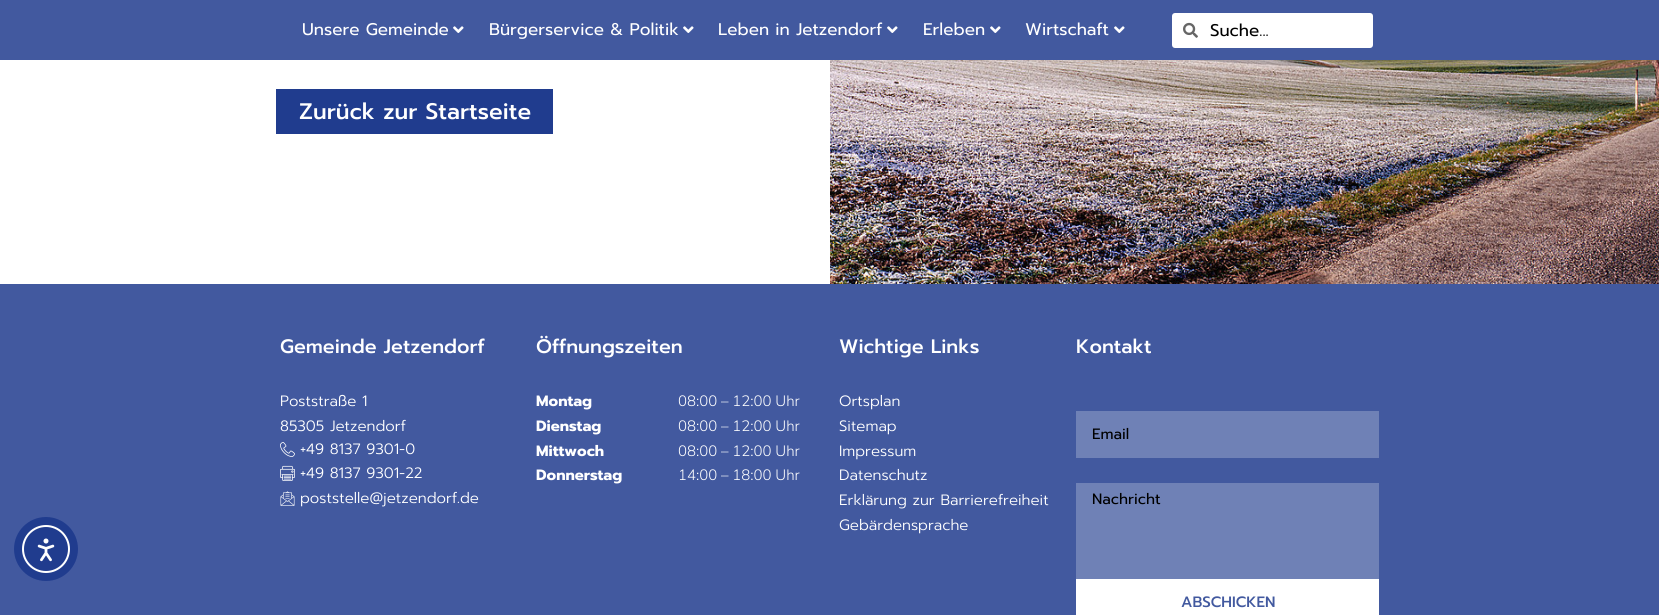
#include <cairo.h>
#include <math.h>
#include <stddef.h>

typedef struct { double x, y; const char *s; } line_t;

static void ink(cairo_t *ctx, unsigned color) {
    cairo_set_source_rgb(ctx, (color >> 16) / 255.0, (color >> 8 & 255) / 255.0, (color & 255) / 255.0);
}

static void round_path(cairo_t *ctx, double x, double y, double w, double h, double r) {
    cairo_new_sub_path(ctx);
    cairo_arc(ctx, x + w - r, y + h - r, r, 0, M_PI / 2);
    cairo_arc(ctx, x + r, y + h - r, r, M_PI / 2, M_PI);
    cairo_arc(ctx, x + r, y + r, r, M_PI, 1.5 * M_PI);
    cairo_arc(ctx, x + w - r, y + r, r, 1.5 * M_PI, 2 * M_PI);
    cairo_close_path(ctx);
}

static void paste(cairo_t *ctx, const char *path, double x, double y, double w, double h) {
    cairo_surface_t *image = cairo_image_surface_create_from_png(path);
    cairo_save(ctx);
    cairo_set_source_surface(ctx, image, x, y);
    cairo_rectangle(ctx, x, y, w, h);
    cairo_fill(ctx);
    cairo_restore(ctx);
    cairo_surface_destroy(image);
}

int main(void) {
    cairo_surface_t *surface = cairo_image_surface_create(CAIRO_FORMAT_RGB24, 1659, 615);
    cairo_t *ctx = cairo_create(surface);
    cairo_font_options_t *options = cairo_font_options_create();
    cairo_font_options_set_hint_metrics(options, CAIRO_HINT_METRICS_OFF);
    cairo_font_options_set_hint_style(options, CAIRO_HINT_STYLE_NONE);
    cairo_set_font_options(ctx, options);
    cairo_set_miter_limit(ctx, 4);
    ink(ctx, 0xFFFFFF);
    cairo_paint(ctx);
    ink(ctx, 0x42599F);
    cairo_rectangle(ctx, 0, 284, 1659, 331);
    cairo_fill(ctx);
    ink(ctx, 0x203C8E);
    cairo_arc(ctx, 46, 549, 32, 0, 2 * M_PI);
    cairo_fill(ctx);
    cairo_arc(ctx, 46, 549, 23, 0, 2 * M_PI);
    ink(ctx, 0xFFFFFF);
    cairo_stroke(ctx);
    paste(ctx, "media/1.png", 37, 538, 18, 24);
    ink(ctx, 0x42599F);
    cairo_rectangle(ctx, 0, 0, 1659, 60);
    cairo_fill(ctx);
    cairo_select_font_face(ctx, "Prompt", CAIRO_FONT_SLANT_NORMAL, CAIRO_FONT_WEIGHT_NORMAL);
    cairo_set_font_size(ctx, 16.9);
    ink(ctx, 0xFFFFFF);
    cairo_move_to(ctx, 302, 35);
    cairo_show_text(ctx, "Unsere Gemeinde");
    paste(ctx, "media/2.png", 453, 26, 11, 7);
    cairo_move_to(ctx, 489, 35);
    cairo_show_text(ctx, "Bürgerservice & Politik");
    paste(ctx, "media/2.png", 683, 26, 11, 7);
    cairo_move_to(ctx, 718, 35);
    cairo_show_text(ctx, "Leben in Jetzendorf");
    paste(ctx, "media/2.png", 887, 26, 11, 7);
    cairo_move_to(ctx, 923, 35);
    cairo_show_text(ctx, "Erleben");
    paste(ctx, "media/2.png", 990, 26, 11, 7);
    cairo_move_to(ctx, 1025, 35);
    cairo_show_text(ctx, "Wirtschaft");
    paste(ctx, "media/2.png", 1114, 26, 11, 7);
    round_path(ctx, 1172, 13, 201, 35, 3);
    cairo_fill(ctx);
    paste(ctx, "media/3.png", 1183, 22, 15, 16);
    ink(ctx, 0x000000);
    cairo_move_to(ctx, 1210, 36);
    cairo_show_text(ctx, "Suche...");
    ink(ctx, 0x203C8E);
    cairo_rectangle(ctx, 276, 89, 277, 45);
    cairo_fill(ctx);
    cairo_select_font_face(ctx, "Prompt Medium", CAIRO_FONT_SLANT_NORMAL, CAIRO_FONT_WEIGHT_NORMAL);
    cairo_set_font_size(ctx, 22.5);
    ink(ctx, 0xFFFFFF);
    cairo_move_to(ctx, 299, 119);
    cairo_show_text(ctx, "Zurück zur Startseite");
    paste(ctx, "media/4.png", 830, 60, 829, 224);
    cairo_set_font_size(ctx, 19.5);
    cairo_move_to(ctx, 280, 353);
    cairo_show_text(ctx, "Gemeinde Jetzendorf");
    cairo_select_font_face(ctx, "Prompt Light", CAIRO_FONT_SLANT_NORMAL, CAIRO_FONT_WEIGHT_NORMAL);
    cairo_set_font_size(ctx, 15);
    cairo_move_to(ctx, 280, 406);
    cairo_show_text(ctx, "Poststraße 1");
    cairo_move_to(ctx, 280, 431);
    cairo_show_text(ctx, "85305 Jetzendorf");
    paste(ctx, "media/5.png", 280, 442, 15, 15);
    cairo_move_to(ctx, 300, 454);
    cairo_show_text(ctx, "+49 8137 9301-0");
    paste(ctx, "media/6.png", 280, 465, 15, 16);
    cairo_move_to(ctx, 300, 478);
    cairo_show_text(ctx, "+49 8137 9301-22");
    paste(ctx, "media/7.png", 280, 491, 15, 15);
    cairo_move_to(ctx, 300, 503);
    cairo_show_text(ctx, "poststelle@jetzendorf.de");
    cairo_select_font_face(ctx, "Prompt Medium", CAIRO_FONT_SLANT_NORMAL, CAIRO_FONT_WEIGHT_NORMAL);
    cairo_set_font_size(ctx, 19.5);
    cairo_move_to(ctx, 536, 353);
    cairo_show_text(ctx, "Öffnungszeiten");
    cairo_select_font_face(ctx, "Prompt", CAIRO_FONT_SLANT_NORMAL, CAIRO_FONT_WEIGHT_BOLD);
    cairo_set_font_size(ctx, 15);
    cairo_move_to(ctx, 536, 406);
    cairo_show_text(ctx, "Montag");
    cairo_select_font_face(ctx, "Nunito Sans Light", CAIRO_FONT_SLANT_NORMAL, CAIRO_FONT_WEIGHT_NORMAL);
    cairo_move_to(ctx, 678, 406);
    cairo_show_text(ctx, "08:00 – 12:00 Uhr");
    cairo_select_font_face(ctx, "Prompt", CAIRO_FONT_SLANT_NORMAL, CAIRO_FONT_WEIGHT_BOLD);
    cairo_move_to(ctx, 536, 431);
    cairo_show_text(ctx, "Dienstag");
    cairo_select_font_face(ctx, "Nunito Sans Light", CAIRO_FONT_SLANT_NORMAL, CAIRO_FONT_WEIGHT_NORMAL);
    cairo_move_to(ctx, 678, 431);
    cairo_show_text(ctx, "08:00 – 12:00 Uhr");
    cairo_select_font_face(ctx, "Prompt", CAIRO_FONT_SLANT_NORMAL, CAIRO_FONT_WEIGHT_BOLD);
    cairo_move_to(ctx, 536, 456);
    cairo_show_text(ctx, "Mittwoch");
    cairo_select_font_face(ctx, "Nunito Sans Light", CAIRO_FONT_SLANT_NORMAL, CAIRO_FONT_WEIGHT_NORMAL);
    cairo_move_to(ctx, 678, 456);
    cairo_show_text(ctx, "08:00 – 12:00 Uhr");
    cairo_select_font_face(ctx, "Prompt", CAIRO_FONT_SLANT_NORMAL, CAIRO_FONT_WEIGHT_BOLD);
    cairo_move_to(ctx, 536, 480);
    cairo_show_text(ctx, "Donnerstag");
    cairo_select_font_face(ctx, "Nunito Sans Light", CAIRO_FONT_SLANT_NORMAL, CAIRO_FONT_WEIGHT_NORMAL);
    cairo_move_to(ctx, 678, 480);
    cairo_show_text(ctx, "14:00 – 18:00 Uhr");
    cairo_select_font_face(ctx, "Prompt Medium", CAIRO_FONT_SLANT_NORMAL, CAIRO_FONT_WEIGHT_NORMAL);
    cairo_set_font_size(ctx, 19.5);
    cairo_move_to(ctx, 839, 353);
    cairo_show_text(ctx, "Wichtige Links");
    cairo_select_font_face(ctx, "Prompt Light", CAIRO_FONT_SLANT_NORMAL, CAIRO_FONT_WEIGHT_NORMAL);
    cairo_set_font_size(ctx, 15);
    {
        static const line_t items[] = {
            {839, 406, "Ortsplan"},
            {839, 431, "Sitemap"},
            {839, 456, "Impressum"},
            {839, 480, "Datenschutz"},
            {839, 505, "Erklärung zur Barrierefreiheit"},
            {839, 530, "Gebärdensprache"},
        };
        for (size_t i = 0; i < sizeof items / sizeof *items; i++) {
            cairo_move_to(ctx, items[i].x, items[i].y);
            cairo_show_text(ctx, items[i].s);
        }
    }
    cairo_select_font_face(ctx, "Prompt Medium", CAIRO_FONT_SLANT_NORMAL, CAIRO_FONT_WEIGHT_NORMAL);
    cairo_set_font_size(ctx, 19.5);
    cairo_move_to(ctx, 1076, 353);
    cairo_show_text(ctx, "Kontakt");
    ink(ctx, 0x6F81B6);
    cairo_rectangle(ctx, 1076, 411, 303, 47);
    cairo_fill(ctx);
    cairo_select_font_face(ctx, "Prompt", CAIRO_FONT_SLANT_NORMAL, CAIRO_FONT_WEIGHT_NORMAL);
    cairo_set_font_size(ctx, 15);
    ink(ctx, 0x000000);
    cairo_move_to(ctx, 1092, 439);
    cairo_show_text(ctx, "Email");
    ink(ctx, 0x6F81B6);
    cairo_rectangle(ctx, 1076, 483, 303, 96);
    cairo_fill(ctx);
    ink(ctx, 0x000000);
    cairo_move_to(ctx, 1092, 504);
    cairo_show_text(ctx, "Nachricht");
    ink(ctx, 0xFFFFFF);
    cairo_rectangle(ctx, 1076, 579, 303, 36);
    cairo_fill(ctx);
    cairo_select_font_face(ctx, "Prompt Medium", CAIRO_FONT_SLANT_NORMAL, CAIRO_FONT_WEIGHT_NORMAL);
    ink(ctx, 0x42599F);
    cairo_move_to(ctx, 1181, 607);
    cairo_show_text(ctx, "ABSCHICKEN");
    cairo_surface_write_to_png(surface, "image.png");
    cairo_font_options_destroy(options);
    cairo_destroy(ctx);
    cairo_surface_destroy(surface);
    return 0;
}
